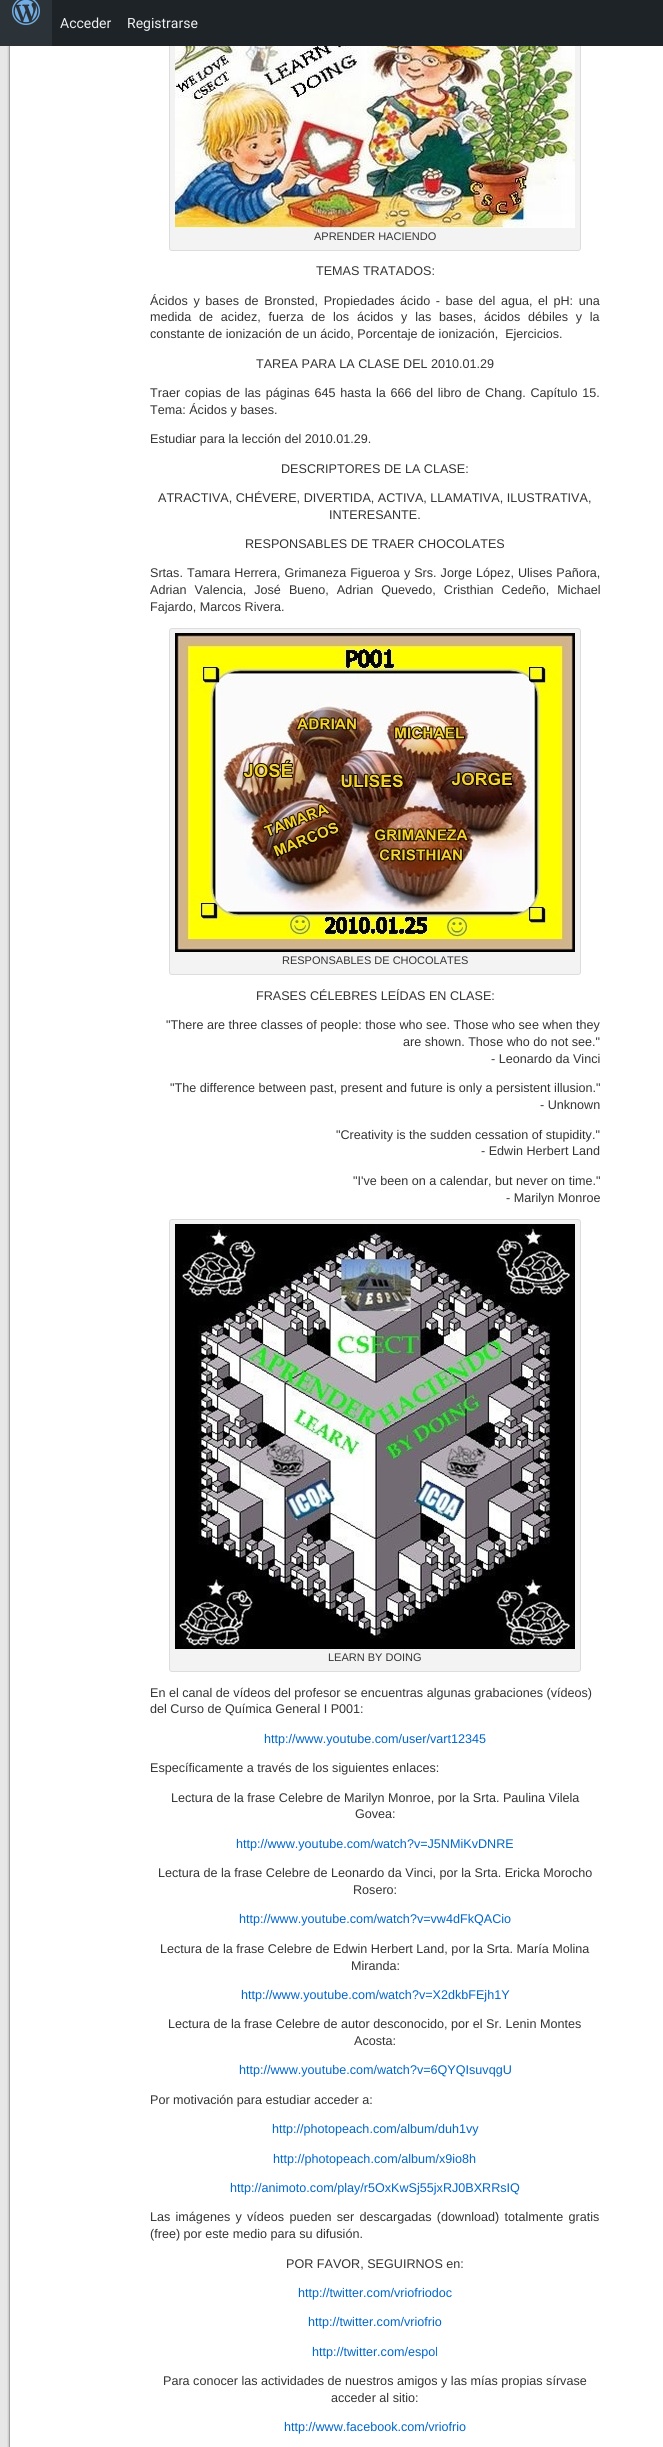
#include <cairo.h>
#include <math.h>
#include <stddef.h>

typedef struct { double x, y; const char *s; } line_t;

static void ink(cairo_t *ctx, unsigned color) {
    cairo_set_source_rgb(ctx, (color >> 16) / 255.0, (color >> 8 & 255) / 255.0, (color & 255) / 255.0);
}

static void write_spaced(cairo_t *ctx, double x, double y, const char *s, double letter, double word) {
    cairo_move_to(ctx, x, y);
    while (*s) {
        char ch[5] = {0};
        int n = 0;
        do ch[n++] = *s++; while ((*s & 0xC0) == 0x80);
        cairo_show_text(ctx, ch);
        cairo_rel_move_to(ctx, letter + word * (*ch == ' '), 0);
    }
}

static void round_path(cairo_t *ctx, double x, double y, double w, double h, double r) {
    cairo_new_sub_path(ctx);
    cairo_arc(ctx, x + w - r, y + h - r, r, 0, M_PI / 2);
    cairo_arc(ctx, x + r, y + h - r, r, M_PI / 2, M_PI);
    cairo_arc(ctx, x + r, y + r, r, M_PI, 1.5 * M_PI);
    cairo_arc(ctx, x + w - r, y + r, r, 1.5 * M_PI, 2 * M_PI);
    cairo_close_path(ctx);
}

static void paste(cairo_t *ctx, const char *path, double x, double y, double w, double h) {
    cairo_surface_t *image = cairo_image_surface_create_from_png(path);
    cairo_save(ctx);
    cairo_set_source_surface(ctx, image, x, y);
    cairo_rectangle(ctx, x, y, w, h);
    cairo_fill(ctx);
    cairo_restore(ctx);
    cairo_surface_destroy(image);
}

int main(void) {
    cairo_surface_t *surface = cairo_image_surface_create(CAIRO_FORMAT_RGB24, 663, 2447);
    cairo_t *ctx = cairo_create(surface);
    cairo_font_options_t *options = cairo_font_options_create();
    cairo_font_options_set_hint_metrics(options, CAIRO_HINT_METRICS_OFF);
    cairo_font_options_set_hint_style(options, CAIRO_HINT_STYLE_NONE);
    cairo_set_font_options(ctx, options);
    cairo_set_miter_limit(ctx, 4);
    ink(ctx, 0xE7E7E7);
    cairo_paint(ctx);
    paste(ctx, "media/2.png", 7, 46, 656, 2401);
    ink(ctx, 0xF3F3F3);
    round_path(ctx, 169.5, -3.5, 411, 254, 2.5);
    cairo_fill_preserve(ctx);
    ink(ctx, 0xDDDDDD);
    cairo_set_line_width(ctx, 1);
    cairo_stroke(ctx);
    ink(ctx, 0x1D2327);
    cairo_rectangle(ctx, 52, 0, 611, 46);
    cairo_fill(ctx);
    ink(ctx, 0x2C3338);
    cairo_rectangle(ctx, 0, 0, 52, 46);
    cairo_fill(ctx);
    paste(ctx, "media/1.png", 12, 0, 28, 25);
    cairo_select_font_face(ctx, "Roboto", CAIRO_FONT_SLANT_NORMAL, CAIRO_FONT_WEIGHT_NORMAL);
    cairo_set_font_size(ctx, 14);
    ink(ctx, 0xF0F0F1);
    cairo_move_to(ctx, 60, 28);
    cairo_show_text(ctx, "Acceder");
    cairo_move_to(ctx, 127, 28);
    cairo_show_text(ctx, "Registrarse");
    paste(ctx, "media/3.png", 175, 46, 400, 182);
    cairo_select_font_face(ctx, "Liberation Sans", CAIRO_FONT_SLANT_NORMAL, CAIRO_FONT_WEIGHT_NORMAL);
    cairo_set_font_size(ctx, 11);
    ink(ctx, 0x333333);
    cairo_move_to(ctx, 314, 240);
    cairo_show_text(ctx, "APRENDER HACIENDO");
    cairo_set_font_size(ctx, 12.6);
    cairo_move_to(ctx, 316, 275);
    cairo_show_text(ctx, "TEMAS TRATADOS:");
    write_spaced(ctx, 150, 305, "Ácidos y bases de Bronsted, Propiedades ácido - base del agua, el pH: una", 0, 2.1);
    write_spaced(ctx, 150, 321, "medida de acidez, fuerza de los ácidos y las bases, ácidos débiles y la", 0, 4.25);
    cairo_move_to(ctx, 150, 338);
    cairo_show_text(ctx, "constante de ionización de un ácido, Porcentaje de ionización,  Ejercicios.");
    cairo_move_to(ctx, 256, 368);
    cairo_show_text(ctx, "TAREA PARA LA CLASE DEL 2010.01.29");
    write_spaced(ctx, 150, 397, "Traer copias de las páginas 645 hasta la 666 del libro de Chang. Capítulo 15.", 0, 1.25);
    {
        static const line_t items[] = {
            {150, 414, "Tema: Ácidos y bases."},
            {150, 443, "Estudiar para la lección del 2010.01.29."},
            {281, 473, "DESCRIPTORES DE LA CLASE:"},
            {158, 502, "ATRACTIVA, CHÉVERE, DIVERTIDA, ACTIVA, LLAMATIVA, ILUSTRATIVA,"},
            {329, 519, "INTERESANTE."},
            {245, 548, "RESPONSABLES DE TRAER CHOCOLATES"},
        };
        for (size_t i = 0; i < sizeof items / sizeof *items; i++) {
            cairo_move_to(ctx, items[i].x, items[i].y);
            cairo_show_text(ctx, items[i].s);
        }
    }
    write_spaced(ctx, 150, 577, "Srtas. Tamara Herrera, Grimaneza Figueroa y Srs. Jorge López, Ulises Pañora,", 0, 0.5);
    write_spaced(ctx, 150, 594, "Adrian Valencia, José Bueno, Adrian Quevedo, Cristhian Cedeño, Michael", 0, 4.5);
    cairo_move_to(ctx, 150, 611);
    cairo_show_text(ctx, "Fajardo, Marcos Rivera.");
    ink(ctx, 0xF3F3F3);
    round_path(ctx, 169.5, 628.5, 411, 346, 2.5);
    cairo_fill_preserve(ctx);
    ink(ctx, 0xDDDDDD);
    cairo_stroke(ctx);
    paste(ctx, "media/4.png", 175, 633, 400, 319);
    cairo_set_font_size(ctx, 11);
    ink(ctx, 0x333333);
    cairo_move_to(ctx, 282, 964);
    cairo_show_text(ctx, "RESPONSABLES DE CHOCOLATES");
    cairo_set_font_size(ctx, 12.6);
    {
        static const line_t items[] = {
            {256, 1000, "FRASES CÉLEBRES LEÍDAS EN CLASE:"},
            {166, 1029, "\"There are three classes of people: those who see. Those who see when they"},
            {403, 1046, "are shown. Those who do not see.\""},
            {491, 1063, "- Leonardo da Vinci"},
            {170, 1092, "\"The difference between past, present and future is only a persistent illusion.\""},
            {540, 1109, "- Unknown"},
            {336, 1139, "\"Creativity is the sudden cessation of stupidity.\""},
            {481, 1155, "- Edwin Herbert Land"},
            {353, 1185, "\"I've been on a calendar, but never on time.\""},
            {506, 1202, "- Marilyn Monroe"},
        };
        for (size_t i = 0; i < sizeof items / sizeof *items; i++) {
            cairo_move_to(ctx, items[i].x, items[i].y);
            cairo_show_text(ctx, items[i].s);
        }
    }
    ink(ctx, 0xF3F3F3);
    round_path(ctx, 169.5, 1219.5, 411, 452, 2.5);
    cairo_fill_preserve(ctx);
    ink(ctx, 0xDDDDDD);
    cairo_stroke(ctx);
    paste(ctx, "media/5.png", 175, 1224, 400, 425);
    cairo_set_font_size(ctx, 11);
    ink(ctx, 0x333333);
    cairo_move_to(ctx, 328, 1661);
    cairo_show_text(ctx, "LEARN BY DOING");
    cairo_set_font_size(ctx, 12.6);
    cairo_move_to(ctx, 150, 1697);
    cairo_show_text(ctx, "En el canal de vídeos del profesor se encuentras algunas grabaciones (vídeos)");
    cairo_move_to(ctx, 150, 1713);
    cairo_show_text(ctx, "del Curso de Química General I P001:");
    ink(ctx, 0x0066CC);
    cairo_move_to(ctx, 264, 1743);
    cairo_show_text(ctx, "http://www.youtube.com/user/vart12345");
    ink(ctx, 0x333333);
    {
        static const line_t items[] = {
            {150, 1772, "Específicamente a través de los siguientes enlaces:"},
            {171, 1802, "Lectura de la frase Celebre de Marilyn Monroe, por la Srta. Paulina Vilela"},
            {355, 1818, "Govea:"},
        };
        for (size_t i = 0; i < sizeof items / sizeof *items; i++) {
            cairo_move_to(ctx, items[i].x, items[i].y);
            cairo_show_text(ctx, items[i].s);
        }
    }
    ink(ctx, 0x0066CC);
    cairo_move_to(ctx, 236, 1848);
    cairo_show_text(ctx, "http://www.youtube.com/watch?v=J5NMiKvDNRE");
    ink(ctx, 0x333333);
    cairo_move_to(ctx, 158, 1877);
    cairo_show_text(ctx, "Lectura de la frase Celebre de Leonardo da Vinci, por la Srta. Ericka Morocho");
    cairo_move_to(ctx, 353, 1894);
    cairo_show_text(ctx, "Rosero:");
    ink(ctx, 0x0066CC);
    cairo_move_to(ctx, 239, 1923);
    cairo_show_text(ctx, "http://www.youtube.com/watch?v=vw4dFkQACio");
    ink(ctx, 0x333333);
    cairo_move_to(ctx, 160, 1953);
    cairo_show_text(ctx, "Lectura de la frase Celebre de Edwin Herbert Land, por la Srta. María Molina");
    cairo_move_to(ctx, 351, 1970);
    cairo_show_text(ctx, "Miranda:");
    ink(ctx, 0x0066CC);
    cairo_move_to(ctx, 241, 1999);
    cairo_show_text(ctx, "http://www.youtube.com/watch?v=X2dkbFEjh1Y");
    ink(ctx, 0x333333);
    cairo_move_to(ctx, 168, 2028);
    cairo_show_text(ctx, "Lectura de la frase Celebre de autor desconocido, por el Sr. Lenin Montes");
    cairo_move_to(ctx, 354, 2045);
    cairo_show_text(ctx, "Acosta:");
    ink(ctx, 0x0066CC);
    cairo_move_to(ctx, 239, 2074);
    cairo_show_text(ctx, "http://www.youtube.com/watch?v=6QYQIsuvqgU");
    ink(ctx, 0x333333);
    cairo_move_to(ctx, 150, 2104);
    cairo_show_text(ctx, "Por motivación para estudiar acceder a:");
    ink(ctx, 0x0066CC);
    {
        static const line_t items[] = {
            {272, 2133, "http://photopeach.com/album/duh1vy"},
            {273, 2163, "http://photopeach.com/album/x9io8h"},
            {230, 2192, "http://animoto.com/play/r5OxKwSj55jxRJ0BXRRsIQ"},
        };
        for (size_t i = 0; i < sizeof items / sizeof *items; i++) {
            cairo_move_to(ctx, items[i].x, items[i].y);
            cairo_show_text(ctx, items[i].s);
        }
    }
    ink(ctx, 0x333333);
    write_spaced(ctx, 150, 2221, "Las imágenes y vídeos pueden ser descargadas (download) totalmente gratis", 0, 1.75);
    cairo_move_to(ctx, 150, 2238);
    cairo_show_text(ctx, "(free) por este medio para su difusión.");
    cairo_move_to(ctx, 286, 2268);
    cairo_show_text(ctx, "POR FAVOR, SEGUIRNOS en:");
    ink(ctx, 0x0066CC);
    {
        static const line_t items[] = {
            {298, 2297, "http://twitter.com/vriofriodoc"},
            {308, 2326, "http://twitter.com/vriofrio"},
            {312, 2356, "http://twitter.com/espol"},
        };
        for (size_t i = 0; i < sizeof items / sizeof *items; i++) {
            cairo_move_to(ctx, items[i].x, items[i].y);
            cairo_show_text(ctx, items[i].s);
        }
    }
    ink(ctx, 0x333333);
    cairo_move_to(ctx, 163, 2385);
    cairo_show_text(ctx, "Para conocer las actividades de nuestros amigos y las mías propias sírvase");
    cairo_move_to(ctx, 331, 2402);
    cairo_show_text(ctx, "acceder al sitio:");
    ink(ctx, 0x0066CC);
    cairo_move_to(ctx, 284, 2431);
    cairo_show_text(ctx, "http://www.facebook.com/vriofrio");
    cairo_surface_write_to_png(surface, "image.png");
    cairo_font_options_destroy(options);
    cairo_destroy(ctx);
    cairo_surface_destroy(surface);
    return 0;
}
